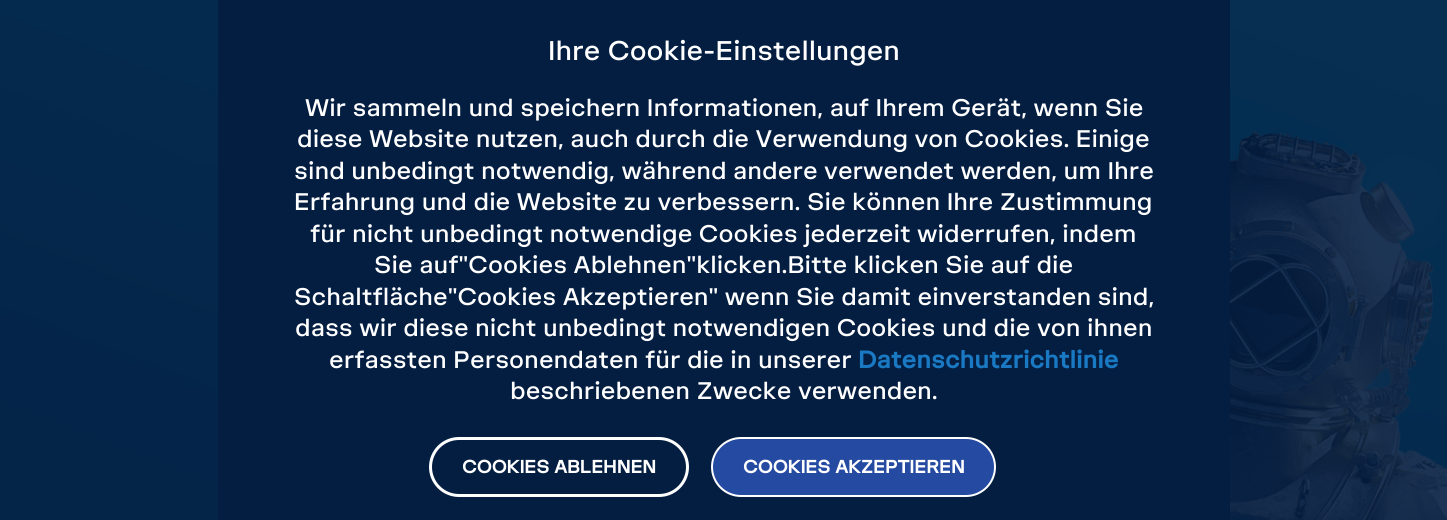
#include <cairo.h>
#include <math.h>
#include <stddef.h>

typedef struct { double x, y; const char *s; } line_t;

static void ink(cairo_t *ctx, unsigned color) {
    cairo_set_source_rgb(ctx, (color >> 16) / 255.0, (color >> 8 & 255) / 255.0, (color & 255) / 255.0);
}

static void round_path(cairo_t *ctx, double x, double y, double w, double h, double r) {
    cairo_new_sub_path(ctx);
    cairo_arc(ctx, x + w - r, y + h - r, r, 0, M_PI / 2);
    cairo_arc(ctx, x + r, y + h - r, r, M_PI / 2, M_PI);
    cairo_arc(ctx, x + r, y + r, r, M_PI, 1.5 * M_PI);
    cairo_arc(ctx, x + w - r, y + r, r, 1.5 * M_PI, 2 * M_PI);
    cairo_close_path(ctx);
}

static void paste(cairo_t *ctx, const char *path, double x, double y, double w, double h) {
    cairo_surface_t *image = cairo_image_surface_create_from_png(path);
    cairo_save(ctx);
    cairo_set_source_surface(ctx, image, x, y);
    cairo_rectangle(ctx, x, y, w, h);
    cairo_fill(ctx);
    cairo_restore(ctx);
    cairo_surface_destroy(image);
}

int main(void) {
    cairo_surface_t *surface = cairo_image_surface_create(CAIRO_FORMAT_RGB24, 1447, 520);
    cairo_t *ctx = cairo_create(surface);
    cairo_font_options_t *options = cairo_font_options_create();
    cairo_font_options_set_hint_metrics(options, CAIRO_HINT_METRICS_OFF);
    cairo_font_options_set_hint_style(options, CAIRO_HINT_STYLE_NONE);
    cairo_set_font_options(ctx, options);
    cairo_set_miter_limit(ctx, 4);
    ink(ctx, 0xFFFFFF);
    cairo_paint(ctx);
    paste(ctx, "media/1.png", 0, 0, 1447, 520);
    ink(ctx, 0x041E42);
    cairo_rectangle(ctx, 218, 0, 1012, 520);
    cairo_fill(ctx);
    cairo_select_font_face(ctx, "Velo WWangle", CAIRO_FONT_SLANT_NORMAL, CAIRO_FONT_WEIGHT_NORMAL);
    cairo_set_font_size(ctx, 27);
    ink(ctx, 0xFFFFFF);
    cairo_move_to(ctx, 548, 60);
    cairo_show_text(ctx, "Ihre Cookie-Einstellungen");
    cairo_set_font_size(ctx, 24);
    {
        static const line_t items[] = {
            {305, 116, "Wir sammeln und speichern Informationen, auf Ihrem Gerät, wenn Sie"},
            {297, 147, "diese Website nutzen, auch durch die Verwendung von Cookies. Einige"},
            {294, 179, "sind unbedingt notwendig, während andere verwendet werden, um Ihre"},
            {294, 210, "Erfahrung und die Website zu verbessern. Sie können Ihre Zustimmung"},
            {310, 242, "für nicht unbedingt notwendige Cookies jederzeit widerrufen, indem"},
            {374, 273, "Sie auf\"Cookies Ablehnen\"klicken.Bitte klicken Sie auf die"},
            {294, 305, "Schaltfläche\"Cookies Akzeptieren\" wenn Sie damit einverstanden sind,"},
            {295, 336, "dass wir diese nicht unbedingt notwendigen Cookies und die von ihnen"},
            {329, 368, "erfassten Personendaten für die in unserer"},
        };
        for (size_t i = 0; i < sizeof items / sizeof *items; i++) {
            cairo_move_to(ctx, items[i].x, items[i].y);
            cairo_show_text(ctx, items[i].s);
        }
    }
    cairo_select_font_face(ctx, "Velo WWangle", CAIRO_FONT_SLANT_NORMAL, CAIRO_FONT_WEIGHT_BOLD);
    ink(ctx, 0x1979C3);
    cairo_move_to(ctx, 858, 368);
    cairo_show_text(ctx, "Datenschutzrichtlinie");
    cairo_select_font_face(ctx, "Velo WWangle", CAIRO_FONT_SLANT_NORMAL, CAIRO_FONT_WEIGHT_NORMAL);
    ink(ctx, 0xFFFFFF);
    cairo_move_to(ctx, 510, 399);
    cairo_show_text(ctx, "beschriebenen Zwecke verwenden.");
    round_path(ctx, 430.5, 438.5, 257, 57, 28.5);
    cairo_set_line_width(ctx, 3);
    cairo_stroke(ctx);
    cairo_select_font_face(ctx, "Velo WWangle", CAIRO_FONT_SLANT_NORMAL, CAIRO_FONT_WEIGHT_BOLD);
    cairo_set_font_size(ctx, 18);
    cairo_move_to(ctx, 462, 473);
    cairo_show_text(ctx, "COOKIES ABLEHNEN");
    ink(ctx, 0x254AA2);
    round_path(ctx, 712, 438, 283, 58, 29);
    cairo_fill_preserve(ctx);
    ink(ctx, 0xFFFFFF);
    cairo_set_line_width(ctx, 2);
    cairo_stroke(ctx);
    cairo_move_to(ctx, 743, 473);
    cairo_show_text(ctx, "COOKIES AKZEPTIEREN");
    cairo_surface_write_to_png(surface, "image.png");
    cairo_font_options_destroy(options);
    cairo_destroy(ctx);
    cairo_surface_destroy(surface);
    return 0;
}
